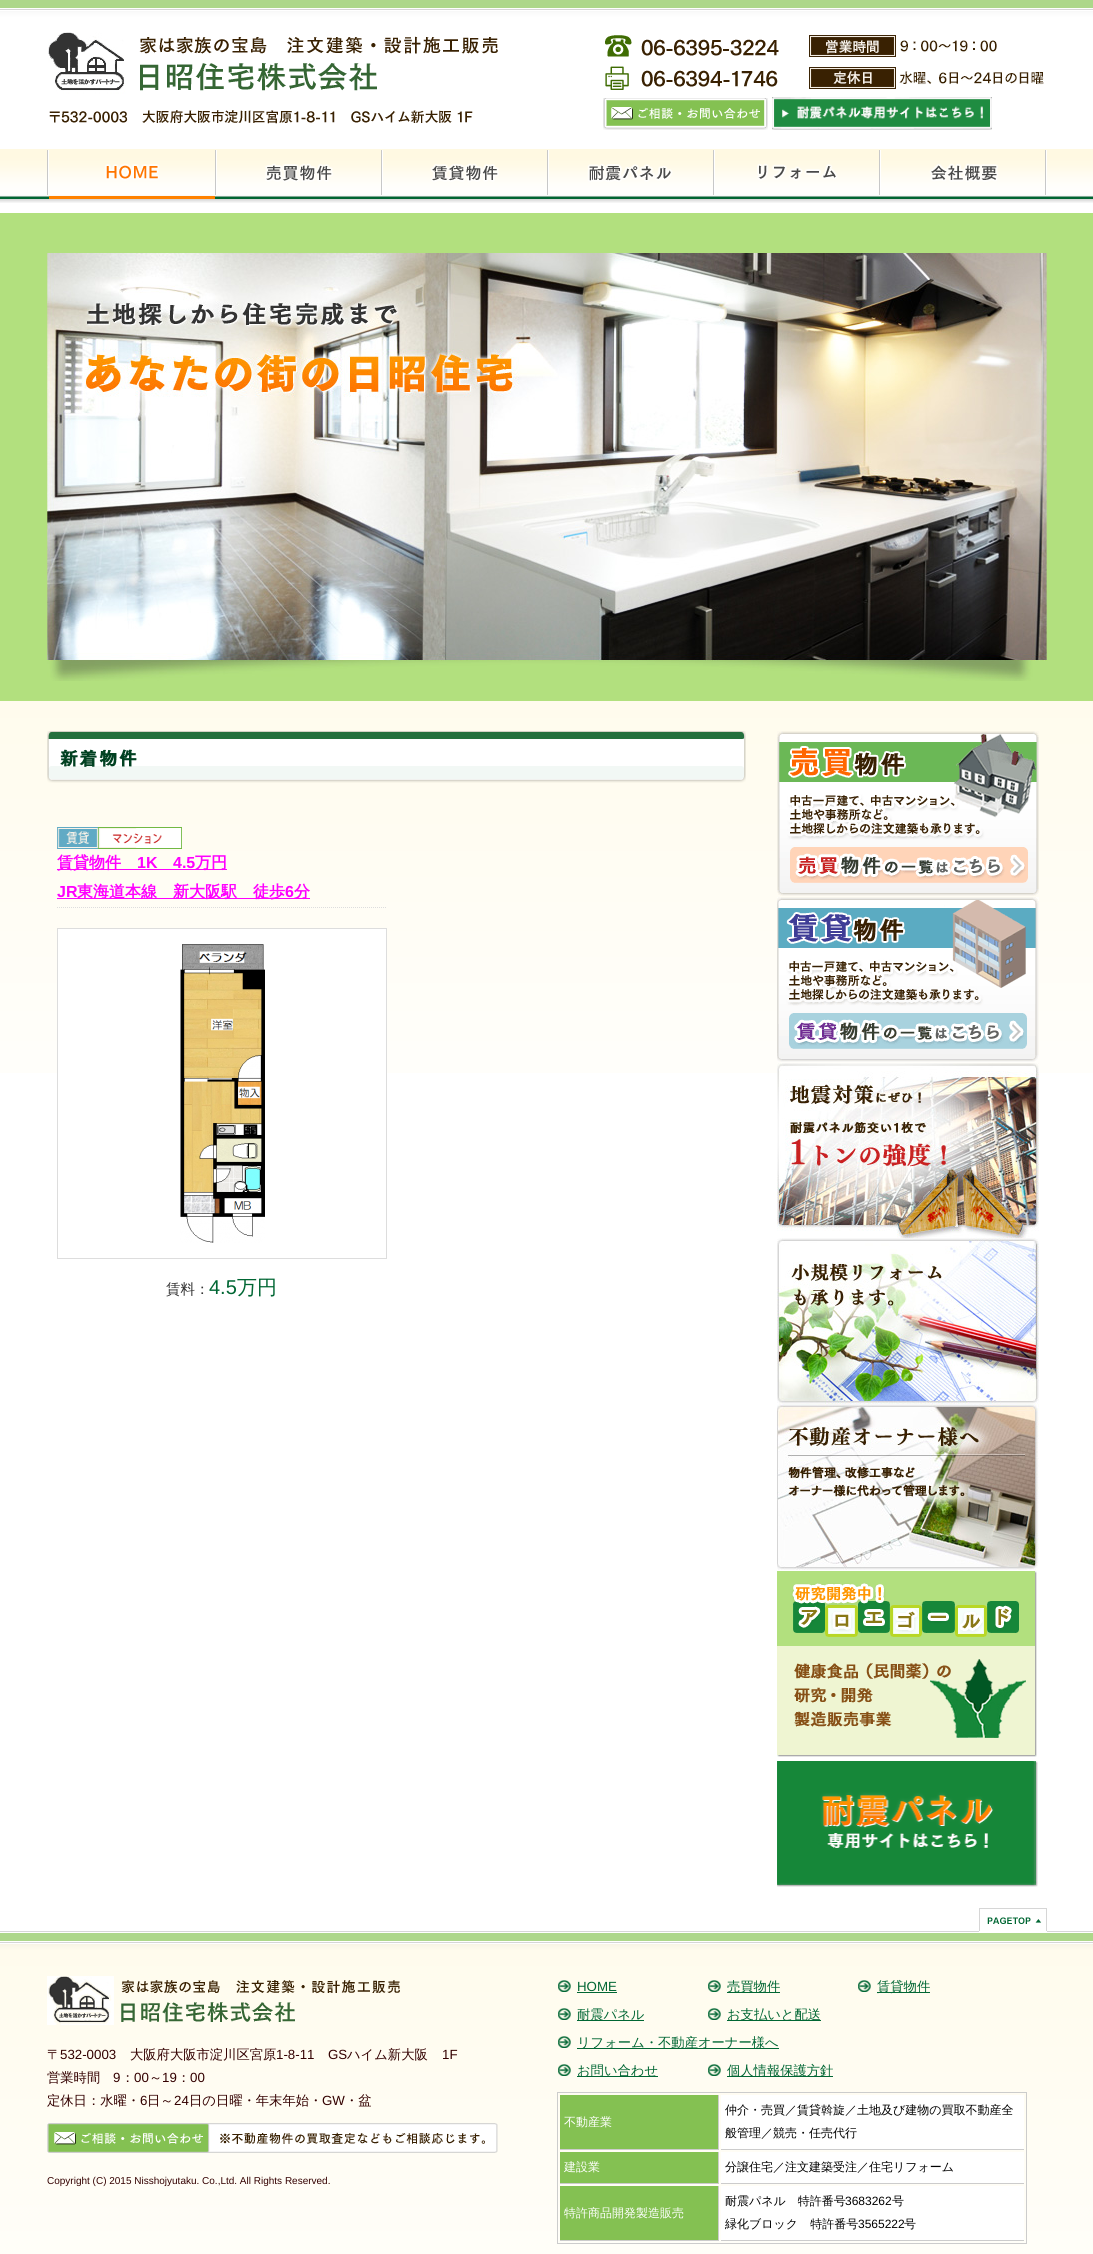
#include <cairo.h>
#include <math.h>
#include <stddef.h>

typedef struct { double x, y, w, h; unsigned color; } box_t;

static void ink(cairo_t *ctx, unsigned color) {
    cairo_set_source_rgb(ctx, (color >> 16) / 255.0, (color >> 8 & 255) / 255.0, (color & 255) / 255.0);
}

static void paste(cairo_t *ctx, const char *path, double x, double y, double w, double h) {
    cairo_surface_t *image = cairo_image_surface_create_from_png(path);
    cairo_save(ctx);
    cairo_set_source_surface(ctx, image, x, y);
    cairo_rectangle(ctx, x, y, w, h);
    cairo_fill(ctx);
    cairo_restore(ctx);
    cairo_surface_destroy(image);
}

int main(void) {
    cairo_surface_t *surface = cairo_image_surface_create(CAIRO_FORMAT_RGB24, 1093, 2254);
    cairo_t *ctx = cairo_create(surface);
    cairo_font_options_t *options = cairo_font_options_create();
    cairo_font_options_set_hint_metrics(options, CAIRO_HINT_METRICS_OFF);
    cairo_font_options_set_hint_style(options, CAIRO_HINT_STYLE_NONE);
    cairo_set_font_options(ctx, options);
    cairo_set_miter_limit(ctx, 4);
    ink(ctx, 0xFFFFFF);
    cairo_paint(ctx);
    paste(ctx, "media/1.png", 0, 0, 1093, 203);
    paste(ctx, "media/2.png", 48, 32, 450, 92);
    paste(ctx, "media/3.png", 605, 35, 439, 55);
    paste(ctx, "media/4.png", 603, 98, 165, 32);
    paste(ctx, "media/5.png", 772, 97, 220, 33);
    paste(ctx, "media/6.png", 47, 150, 1000, 49);
    paste(ctx, "media/7.png", 217, 165, 164, 34);
    paste(ctx, "media/8.png", 383, 165, 164, 34);
    paste(ctx, "media/9.png", 549, 165, 164, 34);
    paste(ctx, "media/10.png", 715, 165, 164, 34);
    paste(ctx, "media/11.png", 881, 165, 164, 34);
    ink(ctx, 0xB2E07E);
    cairo_rectangle(ctx, 0, 213, 1093, 488);
    cairo_fill(ctx);
    paste(ctx, "media/12.png", 47, 253, 1000, 428);
    paste(ctx, "media/13.png", 0, 701, 1093, 372);
    paste(ctx, "media/14.png", 47, 731, 699, 52);
    paste(ctx, "media/15.png", 57, 827, 125, 22);
    cairo_new_path(ctx);
    cairo_move_to(ctx, 57, 907.5);
    cairo_line_to(ctx, 387, 907.5);
    ink(ctx, 0xDDDDDD);
    cairo_set_line_width(ctx, 1);
    cairo_set_dash(ctx, (double[]){1, 1}, 2, 0);
    cairo_stroke(ctx);
    ink(ctx, 0xFF00FF);
    cairo_rectangle(ctx, 57, 869, 170, 1);
    cairo_fill(ctx);
    cairo_select_font_face(ctx, "WenQuanYi Zen Hei", CAIRO_FONT_SLANT_NORMAL, CAIRO_FONT_WEIGHT_BOLD);
    cairo_set_font_size(ctx, 16);
    cairo_move_to(ctx, 57, 868);
    cairo_show_text(ctx, "賃貸物件");
    cairo_select_font_face(ctx, "Liberation Sans", CAIRO_FONT_SLANT_NORMAL, CAIRO_FONT_WEIGHT_BOLD);
    cairo_move_to(ctx, 137, 868);
    cairo_show_text(ctx, "1K");
    cairo_move_to(ctx, 173, 868);
    cairo_show_text(ctx, "4.5");
    cairo_select_font_face(ctx, "WenQuanYi Zen Hei", CAIRO_FONT_SLANT_NORMAL, CAIRO_FONT_WEIGHT_BOLD);
    cairo_move_to(ctx, 195, 868);
    cairo_show_text(ctx, "万円");
    cairo_select_font_face(ctx, "Liberation Sans", CAIRO_FONT_SLANT_NORMAL, CAIRO_FONT_WEIGHT_BOLD);
    cairo_move_to(ctx, 57, 897);
    cairo_show_text(ctx, "JR");
    cairo_rectangle(ctx, 57, 898, 253, 1);
    cairo_fill(ctx);
    cairo_select_font_face(ctx, "WenQuanYi Zen Hei", CAIRO_FONT_SLANT_NORMAL, CAIRO_FONT_WEIGHT_BOLD);
    cairo_move_to(ctx, 77, 897);
    cairo_show_text(ctx, "東海道本線　新大阪駅　徒歩");
    cairo_select_font_face(ctx, "Liberation Sans", CAIRO_FONT_SLANT_NORMAL, CAIRO_FONT_WEIGHT_BOLD);
    cairo_move_to(ctx, 285, 897);
    cairo_show_text(ctx, "6");
    cairo_select_font_face(ctx, "WenQuanYi Zen Hei", CAIRO_FONT_SLANT_NORMAL, CAIRO_FONT_WEIGHT_BOLD);
    cairo_move_to(ctx, 294, 897);
    cairo_show_text(ctx, "分");
    ink(ctx, 0xFFFFFF);
    cairo_rectangle(ctx, 58, 929, 328, 144);
    cairo_fill(ctx);
    cairo_rectangle(ctx, 57.5, 928.5, 329, 330);
    ink(ctx, 0xDDDDDD);
    cairo_set_dash(ctx, NULL, 0, 0);
    cairo_stroke(ctx);
    paste(ctx, "media/16.png", 180, 944, 85, 299);
    cairo_select_font_face(ctx, "WenQuanYi Zen Hei Medium", CAIRO_FONT_SLANT_NORMAL, CAIRO_FONT_WEIGHT_NORMAL);
    cairo_set_font_size(ctx, 14.5);
    ink(ctx, 0x333333);
    cairo_move_to(ctx, 166, 1294);
    cairo_show_text(ctx, "賃料：");
    cairo_select_font_face(ctx, "Liberation Sans", CAIRO_FONT_SLANT_NORMAL, CAIRO_FONT_WEIGHT_NORMAL);
    cairo_set_font_size(ctx, 20);
    ink(ctx, 0x006633);
    cairo_move_to(ctx, 209, 1294);
    cairo_show_text(ctx, "4.5");
    cairo_select_font_face(ctx, "WenQuanYi Zen Hei Medium", CAIRO_FONT_SLANT_NORMAL, CAIRO_FONT_WEIGHT_NORMAL);
    cairo_move_to(ctx, 237, 1294);
    cairo_show_text(ctx, "万円");
    paste(ctx, "media/17.png", 777, 731, 262, 165);
    paste(ctx, "media/18.png", 777, 897, 262, 165);
    paste(ctx, "media/19.png", 777, 1063, 262, 175);
    paste(ctx, "media/20.png", 777, 1238, 262, 166);
    paste(ctx, "media/21.png", 777, 1404, 262, 166);
    paste(ctx, "media/22.png", 777, 1571, 260, 186);
    paste(ctx, "media/23.png", 777, 1761, 261, 126);
    paste(ctx, "media/25.png", 0, 1930, 1093, 324);
    paste(ctx, "media/24.png", 979, 1908, 68, 24);
    paste(ctx, "media/26.png", 47, 1976, 353, 49);
    cairo_set_font_size(ctx, 13.3);
    ink(ctx, 0x330000);
    cairo_move_to(ctx, 47, 2059);
    cairo_show_text(ctx, "〒");
    cairo_select_font_face(ctx, "Liberation Sans", CAIRO_FONT_SLANT_NORMAL, CAIRO_FONT_WEIGHT_NORMAL);
    cairo_move_to(ctx, 60, 2059);
    cairo_show_text(ctx, "532-0003");
    cairo_select_font_face(ctx, "WenQuanYi Zen Hei Medium", CAIRO_FONT_SLANT_NORMAL, CAIRO_FONT_WEIGHT_NORMAL);
    cairo_move_to(ctx, 130, 2059);
    cairo_show_text(ctx, "大阪府大阪市淀川区宮原");
    cairo_select_font_face(ctx, "Liberation Sans", CAIRO_FONT_SLANT_NORMAL, CAIRO_FONT_WEIGHT_NORMAL);
    cairo_move_to(ctx, 276, 2059);
    cairo_show_text(ctx, "1-8-11");
    cairo_move_to(ctx, 328, 2059);
    cairo_show_text(ctx, "GS");
    cairo_select_font_face(ctx, "WenQuanYi Zen Hei Medium", CAIRO_FONT_SLANT_NORMAL, CAIRO_FONT_WEIGHT_NORMAL);
    cairo_move_to(ctx, 347, 2059);
    cairo_show_text(ctx, "ハイム新大阪");
    cairo_select_font_face(ctx, "Liberation Sans", CAIRO_FONT_SLANT_NORMAL, CAIRO_FONT_WEIGHT_NORMAL);
    cairo_move_to(ctx, 442, 2059);
    cairo_show_text(ctx, "1F");
    cairo_select_font_face(ctx, "WenQuanYi Zen Hei Medium", CAIRO_FONT_SLANT_NORMAL, CAIRO_FONT_WEIGHT_NORMAL);
    cairo_move_to(ctx, 47, 2082);
    cairo_show_text(ctx, "営業時間");
    cairo_select_font_face(ctx, "Liberation Sans", CAIRO_FONT_SLANT_NORMAL, CAIRO_FONT_WEIGHT_NORMAL);
    cairo_move_to(ctx, 113, 2082);
    cairo_show_text(ctx, "9");
    cairo_select_font_face(ctx, "WenQuanYi Zen Hei Medium", CAIRO_FONT_SLANT_NORMAL, CAIRO_FONT_WEIGHT_NORMAL);
    cairo_move_to(ctx, 121, 2082);
    cairo_show_text(ctx, "：");
    cairo_select_font_face(ctx, "Liberation Sans", CAIRO_FONT_SLANT_NORMAL, CAIRO_FONT_WEIGHT_NORMAL);
    cairo_move_to(ctx, 134, 2082);
    cairo_show_text(ctx, "00");
    cairo_select_font_face(ctx, "WenQuanYi Zen Hei Medium", CAIRO_FONT_SLANT_NORMAL, CAIRO_FONT_WEIGHT_NORMAL);
    cairo_move_to(ctx, 149, 2082);
    cairo_show_text(ctx, "～");
    cairo_select_font_face(ctx, "Liberation Sans", CAIRO_FONT_SLANT_NORMAL, CAIRO_FONT_WEIGHT_NORMAL);
    cairo_move_to(ctx, 162, 2082);
    cairo_show_text(ctx, "19");
    cairo_select_font_face(ctx, "WenQuanYi Zen Hei Medium", CAIRO_FONT_SLANT_NORMAL, CAIRO_FONT_WEIGHT_NORMAL);
    cairo_move_to(ctx, 177, 2082);
    cairo_show_text(ctx, "：");
    cairo_select_font_face(ctx, "Liberation Sans", CAIRO_FONT_SLANT_NORMAL, CAIRO_FONT_WEIGHT_NORMAL);
    cairo_move_to(ctx, 190, 2082);
    cairo_show_text(ctx, "00");
    cairo_select_font_face(ctx, "WenQuanYi Zen Hei Medium", CAIRO_FONT_SLANT_NORMAL, CAIRO_FONT_WEIGHT_NORMAL);
    cairo_move_to(ctx, 47, 2105);
    cairo_show_text(ctx, "定休日：水曜・");
    cairo_select_font_face(ctx, "Liberation Sans", CAIRO_FONT_SLANT_NORMAL, CAIRO_FONT_WEIGHT_NORMAL);
    cairo_move_to(ctx, 140, 2105);
    cairo_show_text(ctx, "6");
    cairo_select_font_face(ctx, "WenQuanYi Zen Hei Medium", CAIRO_FONT_SLANT_NORMAL, CAIRO_FONT_WEIGHT_NORMAL);
    cairo_move_to(ctx, 147, 2105);
    cairo_show_text(ctx, "日～");
    cairo_select_font_face(ctx, "Liberation Sans", CAIRO_FONT_SLANT_NORMAL, CAIRO_FONT_WEIGHT_NORMAL);
    cairo_move_to(ctx, 174, 2105);
    cairo_show_text(ctx, "24");
    cairo_select_font_face(ctx, "WenQuanYi Zen Hei Medium", CAIRO_FONT_SLANT_NORMAL, CAIRO_FONT_WEIGHT_NORMAL);
    cairo_move_to(ctx, 189, 2105);
    cairo_show_text(ctx, "日の日曜・年末年始・");
    cairo_select_font_face(ctx, "Liberation Sans", CAIRO_FONT_SLANT_NORMAL, CAIRO_FONT_WEIGHT_NORMAL);
    cairo_move_to(ctx, 322, 2105);
    cairo_show_text(ctx, "GW");
    cairo_select_font_face(ctx, "WenQuanYi Zen Hei Medium", CAIRO_FONT_SLANT_NORMAL, CAIRO_FONT_WEIGHT_NORMAL);
    cairo_move_to(ctx, 345, 2105);
    cairo_show_text(ctx, "・盆");
    paste(ctx, "media/27.png", 47, 2123, 451, 30);
    cairo_select_font_face(ctx, "Liberation Sans", CAIRO_FONT_SLANT_NORMAL, CAIRO_FONT_WEIGHT_NORMAL);
    cairo_set_font_size(ctx, 10);
    cairo_move_to(ctx, 47, 2184);
    cairo_show_text(ctx, "Copyright (C) 2015 Nisshojyutaku. Co.,Ltd. All Rights Reserved.");
    paste(ctx, "media/28.png", 558, 1980, 13, 12);
    cairo_set_font_size(ctx, 13.3);
    ink(ctx, 0x006633);
    cairo_move_to(ctx, 577, 1991);
    cairo_show_text(ctx, "HOME");
    cairo_rectangle(ctx, 577, 1992, 40, 1);
    cairo_fill(ctx);
    paste(ctx, "media/29.png", 708, 1980, 13, 12);
    cairo_rectangle(ctx, 727, 1992, 53, 1);
    cairo_fill(ctx);
    cairo_select_font_face(ctx, "WenQuanYi Zen Hei Medium", CAIRO_FONT_SLANT_NORMAL, CAIRO_FONT_WEIGHT_NORMAL);
    cairo_move_to(ctx, 727, 1991);
    cairo_show_text(ctx, "売買物件");
    paste(ctx, "media/28.png", 858, 1980, 13, 12);
    cairo_rectangle(ctx, 877, 1992, 53, 1);
    cairo_fill(ctx);
    cairo_move_to(ctx, 877, 1991);
    cairo_show_text(ctx, "賃貸物件");
    paste(ctx, "media/28.png", 558, 2008, 13, 12);
    cairo_rectangle(ctx, 577, 2020, 67, 1);
    cairo_fill(ctx);
    cairo_move_to(ctx, 577, 2019);
    cairo_show_text(ctx, "耐震パネル");
    paste(ctx, "media/29.png", 708, 2008, 13, 12);
    cairo_rectangle(ctx, 727, 2020, 94, 1);
    cairo_fill(ctx);
    cairo_move_to(ctx, 727, 2019);
    cairo_show_text(ctx, "お支払いと配送");
    paste(ctx, "media/28.png", 558, 2036, 13, 12);
    cairo_rectangle(ctx, 577, 2048, 202, 1);
    cairo_fill(ctx);
    cairo_move_to(ctx, 577, 2047);
    cairo_show_text(ctx, "リフォーム・不動産オーナー様へ");
    paste(ctx, "media/28.png", 558, 2064, 13, 12);
    cairo_rectangle(ctx, 577, 2076, 81, 1);
    cairo_fill(ctx);
    cairo_move_to(ctx, 577, 2075);
    cairo_show_text(ctx, "お問い合わせ");
    paste(ctx, "media/29.png", 708, 2064, 13, 12);
    cairo_rectangle(ctx, 727, 2076, 106, 1);
    cairo_fill(ctx);
    cairo_move_to(ctx, 727, 2075);
    cairo_show_text(ctx, "個人情報保護方針");
    cairo_rectangle(ctx, 557.5, 2092.5, 469, 151);
    ink(ctx, 0xCCCCCC);
    cairo_stroke(ctx);
    {
        static const box_t items[] = {
            {560, 2095, 158, 54, 0x84C152},
            {718, 2095, 1, 55, 0xCCCCCC},
            {560, 2149, 159, 1, 0xCCCCCC},
        };
        for (size_t i = 0; i < sizeof items / sizeof *items; i++) {
            ink(ctx, items[i].color);
            cairo_rectangle(ctx, items[i].x, items[i].y, items[i].w, items[i].h);
            cairo_fill(ctx);
        }
    }
    cairo_set_font_size(ctx, 12);
    ink(ctx, 0xFFFFFF);
    cairo_move_to(ctx, 564, 2126);
    cairo_show_text(ctx, "不動産業");
    cairo_rectangle(ctx, 721, 2095, 303, 54);
    cairo_fill(ctx);
    ink(ctx, 0xCCCCCC);
    cairo_rectangle(ctx, 721, 2149, 303, 1);
    cairo_fill(ctx);
    ink(ctx, 0x000000);
    cairo_move_to(ctx, 725, 2114);
    cairo_show_text(ctx, "仲介・売買／賃貸斡旋／土地及び建物の買取不動産全");
    cairo_move_to(ctx, 725, 2137);
    cairo_show_text(ctx, "般管理／競売・任売代行");
    {
        static const box_t items[] = {
            {560, 2152, 158, 31, 0x84C152},
            {718, 2152, 1, 32, 0xCCCCCC},
            {560, 2183, 159, 1, 0xCCCCCC},
        };
        for (size_t i = 0; i < sizeof items / sizeof *items; i++) {
            ink(ctx, items[i].color);
            cairo_rectangle(ctx, items[i].x, items[i].y, items[i].w, items[i].h);
            cairo_fill(ctx);
        }
    }
    ink(ctx, 0xFFFFFF);
    cairo_move_to(ctx, 564, 2171);
    cairo_show_text(ctx, "建設業");
    cairo_rectangle(ctx, 721, 2152, 303, 31);
    cairo_fill(ctx);
    ink(ctx, 0xCCCCCC);
    cairo_rectangle(ctx, 721, 2183, 303, 1);
    cairo_fill(ctx);
    ink(ctx, 0x000000);
    cairo_move_to(ctx, 725, 2171);
    cairo_show_text(ctx, "分譲住宅／注文建築受注／住宅リフォーム");
    {
        static const box_t items[] = {
            {560, 2186, 158, 54, 0x84C152},
            {718, 2186, 1, 55, 0xCCCCCC},
            {560, 2240, 159, 1, 0xCCCCCC},
        };
        for (size_t i = 0; i < sizeof items / sizeof *items; i++) {
            ink(ctx, items[i].color);
            cairo_rectangle(ctx, items[i].x, items[i].y, items[i].w, items[i].h);
            cairo_fill(ctx);
        }
    }
    ink(ctx, 0xFFFFFF);
    cairo_move_to(ctx, 564, 2217);
    cairo_show_text(ctx, "特許商品開発製造販売");
    cairo_rectangle(ctx, 721, 2186, 303, 54);
    cairo_fill(ctx);
    ink(ctx, 0xCCCCCC);
    cairo_rectangle(ctx, 721, 2240, 303, 1);
    cairo_fill(ctx);
    ink(ctx, 0x000000);
    cairo_move_to(ctx, 725, 2205);
    cairo_show_text(ctx, "耐震パネル　特許番号");
    cairo_select_font_face(ctx, "Liberation Sans", CAIRO_FONT_SLANT_NORMAL, CAIRO_FONT_WEIGHT_NORMAL);
    cairo_move_to(ctx, 845, 2205);
    cairo_show_text(ctx, "3683262");
    cairo_select_font_face(ctx, "WenQuanYi Zen Hei Medium", CAIRO_FONT_SLANT_NORMAL, CAIRO_FONT_WEIGHT_NORMAL);
    cairo_move_to(ctx, 892, 2205);
    cairo_show_text(ctx, "号");
    cairo_move_to(ctx, 725, 2228);
    cairo_show_text(ctx, "緑化ブロック　特許番号");
    cairo_select_font_face(ctx, "Liberation Sans", CAIRO_FONT_SLANT_NORMAL, CAIRO_FONT_WEIGHT_NORMAL);
    cairo_move_to(ctx, 858, 2228);
    cairo_show_text(ctx, "3565222");
    cairo_select_font_face(ctx, "WenQuanYi Zen Hei Medium", CAIRO_FONT_SLANT_NORMAL, CAIRO_FONT_WEIGHT_NORMAL);
    cairo_move_to(ctx, 904, 2228);
    cairo_show_text(ctx, "号");
    cairo_surface_write_to_png(surface, "image.png");
    cairo_font_options_destroy(options);
    cairo_destroy(ctx);
    cairo_surface_destroy(surface);
    return 0;
}
